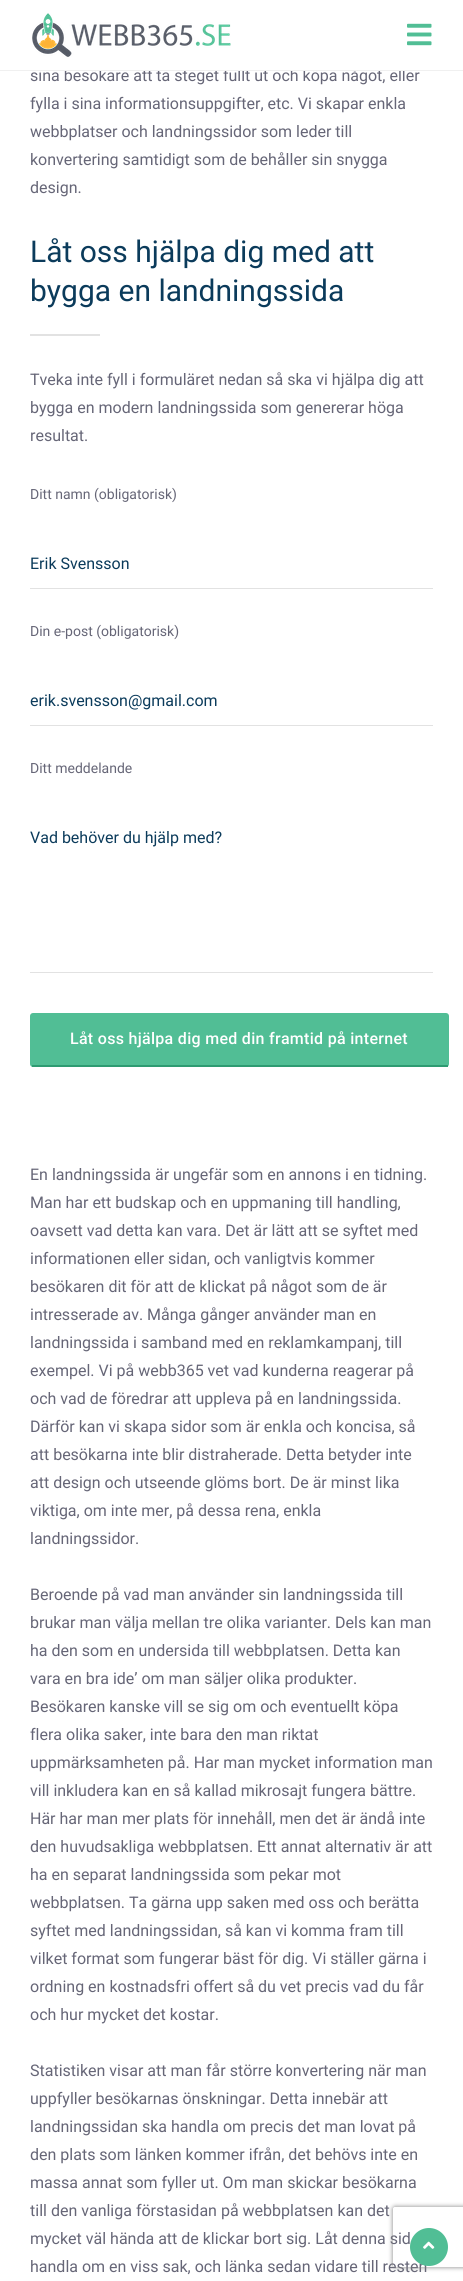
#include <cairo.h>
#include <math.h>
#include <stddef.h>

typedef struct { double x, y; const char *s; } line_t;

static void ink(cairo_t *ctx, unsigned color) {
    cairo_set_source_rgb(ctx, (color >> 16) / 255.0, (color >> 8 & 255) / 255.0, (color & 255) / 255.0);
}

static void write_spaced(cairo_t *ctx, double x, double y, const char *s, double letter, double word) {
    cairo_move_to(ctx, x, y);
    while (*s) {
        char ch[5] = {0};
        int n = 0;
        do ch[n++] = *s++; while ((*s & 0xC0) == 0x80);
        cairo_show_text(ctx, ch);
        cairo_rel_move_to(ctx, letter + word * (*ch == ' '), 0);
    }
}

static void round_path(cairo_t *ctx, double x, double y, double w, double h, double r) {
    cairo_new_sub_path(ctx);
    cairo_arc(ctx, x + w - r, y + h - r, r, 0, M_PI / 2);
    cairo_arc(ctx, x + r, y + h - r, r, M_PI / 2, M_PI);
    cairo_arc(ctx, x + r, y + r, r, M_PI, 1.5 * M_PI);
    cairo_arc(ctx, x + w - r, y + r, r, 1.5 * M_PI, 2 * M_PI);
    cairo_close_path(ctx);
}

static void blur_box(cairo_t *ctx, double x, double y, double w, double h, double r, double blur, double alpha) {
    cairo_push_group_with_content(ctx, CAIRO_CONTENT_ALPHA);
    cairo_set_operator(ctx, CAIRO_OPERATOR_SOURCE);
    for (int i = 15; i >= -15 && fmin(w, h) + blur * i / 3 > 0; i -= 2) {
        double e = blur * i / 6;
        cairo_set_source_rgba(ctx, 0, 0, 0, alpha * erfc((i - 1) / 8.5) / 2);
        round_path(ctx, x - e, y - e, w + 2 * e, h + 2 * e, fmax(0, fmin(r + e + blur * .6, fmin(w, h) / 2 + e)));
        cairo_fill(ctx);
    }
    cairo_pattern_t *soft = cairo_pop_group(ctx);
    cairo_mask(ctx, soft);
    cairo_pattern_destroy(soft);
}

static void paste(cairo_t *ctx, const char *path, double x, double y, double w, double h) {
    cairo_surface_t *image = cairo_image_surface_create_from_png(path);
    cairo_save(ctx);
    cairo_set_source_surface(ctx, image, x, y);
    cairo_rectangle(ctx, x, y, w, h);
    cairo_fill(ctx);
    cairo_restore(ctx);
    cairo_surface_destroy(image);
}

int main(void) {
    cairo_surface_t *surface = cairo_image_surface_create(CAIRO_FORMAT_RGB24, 463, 2281);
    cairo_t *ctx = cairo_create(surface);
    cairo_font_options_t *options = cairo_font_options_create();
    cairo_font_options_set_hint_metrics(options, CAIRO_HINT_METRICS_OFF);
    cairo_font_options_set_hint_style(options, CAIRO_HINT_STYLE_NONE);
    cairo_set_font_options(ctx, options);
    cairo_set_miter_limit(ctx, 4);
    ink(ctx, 0xFFFFFF);
    cairo_paint(ctx);
    cairo_select_font_face(ctx, "Roboto", CAIRO_FONT_SLANT_NORMAL, CAIRO_FONT_WEIGHT_NORMAL);
    cairo_set_font_size(ctx, 16);
    ink(ctx, 0x666677);
    cairo_move_to(ctx, 30, 81);
    cairo_show_text(ctx, "sina besökare att ta steget fullt ut och köpa något, eller");
    ink(ctx, 0xFFFFFF);
    cairo_rectangle(ctx, 39, 68, 366, 2);
    cairo_fill(ctx);
    ink(ctx, 0xF0F0F0);
    cairo_rectangle(ctx, 0, 70, 463, 1);
    cairo_fill(ctx);
    paste(ctx, "media/1.png", 32, 13, 199, 44);
    paste(ctx, "media/2.png", 407, 23, 25, 23);
    ink(ctx, 0x666677);
    {
        static const line_t items[] = {
            {30, 109, "fylla i sina informationsuppgifter, etc. Vi skapar enkla"},
            {30, 137, "webbplatser och landningssidor som leder till"},
            {30, 165, "konvertering samtidigt som de behåller sin snygga"},
            {30, 193, "design."},
        };
        for (size_t i = 0; i < sizeof items / sizeof *items; i++) {
            cairo_move_to(ctx, items[i].x, items[i].y);
            cairo_show_text(ctx, items[i].s);
        }
    }
    cairo_set_font_size(ctx, 30);
    ink(ctx, 0x0B3B5B);
    cairo_move_to(ctx, 30, 262);
    cairo_show_text(ctx, "Låt oss hjälpa dig med att");
    cairo_move_to(ctx, 30, 301);
    cairo_show_text(ctx, "bygga en landningssida");
    ink(ctx, 0xE2E2E2);
    cairo_rectangle(ctx, 30, 334, 70, 2);
    cairo_fill(ctx);
    cairo_set_font_size(ctx, 16);
    ink(ctx, 0x666677);
    {
        static const line_t items[] = {
            {30, 385, "Tveka inte fyll i formuläret nedan så ska vi hjälpa dig att"},
            {30, 413, "bygga en modern landningssida som genererar höga"},
            {30, 441, "resultat."},
        };
        for (size_t i = 0; i < sizeof items / sizeof *items; i++) {
            cairo_move_to(ctx, items[i].x, items[i].y);
            cairo_show_text(ctx, items[i].s);
        }
    }
    cairo_set_font_size(ctx, 14);
    cairo_move_to(ctx, 30, 499);
    cairo_show_text(ctx, "Ditt namn (obligatorisk)");
    ink(ctx, 0xE2E2E2);
    cairo_rectangle(ctx, 30, 588, 403, 1);
    cairo_fill(ctx);
    cairo_set_font_size(ctx, 16);
    ink(ctx, 0x0B3B5B);
    cairo_move_to(ctx, 30, 569);
    cairo_show_text(ctx, "Erik Svensson");
    cairo_set_font_size(ctx, 14);
    ink(ctx, 0x666677);
    cairo_move_to(ctx, 30, 636);
    cairo_show_text(ctx, "Din e-post (obligatorisk)");
    ink(ctx, 0xE2E2E2);
    cairo_rectangle(ctx, 30, 725, 403, 1);
    cairo_fill(ctx);
    cairo_set_font_size(ctx, 16);
    ink(ctx, 0x0B3B5B);
    cairo_move_to(ctx, 30, 706);
    cairo_show_text(ctx, "erik.svensson@gmail.com");
    cairo_set_font_size(ctx, 14);
    ink(ctx, 0x666677);
    cairo_move_to(ctx, 30, 773);
    cairo_show_text(ctx, "Ditt meddelande");
    ink(ctx, 0xE2E2E2);
    cairo_rectangle(ctx, 30, 972, 403, 1);
    cairo_fill(ctx);
    cairo_set_font_size(ctx, 16);
    ink(ctx, 0x0B3B5B);
    cairo_move_to(ctx, 30, 843);
    cairo_show_text(ctx, "Vad behöver du hjälp med?");
    ink(ctx, 0x51BE95);
    round_path(ctx, 30, 1013, 419, 54, 3);
    cairo_fill(ctx);
    ink(ctx, 0x2E9B72);
    cairo_rectangle(ctx, 32, 1065, 416, 2);
    cairo_fill(ctx);
    cairo_select_font_face(ctx, "Roboto Medium", CAIRO_FONT_SLANT_NORMAL, CAIRO_FONT_WEIGHT_NORMAL);
    ink(ctx, 0xFFFFFF);
    write_spaced(ctx, 70, 1044, "Låt oss hjälpa dig med din framtid på internet", 0.3, 0);
    cairo_select_font_face(ctx, "Roboto", CAIRO_FONT_SLANT_NORMAL, CAIRO_FONT_WEIGHT_NORMAL);
    ink(ctx, 0x666677);
    {
        static const line_t items[] = {
            {30, 1180, "En landningssida är ungefär som en annons i en tidning."},
            {30, 1208, "Man har ett budskap och en uppmaning till handling,"},
            {30, 1236, "oavsett vad detta kan vara. Det är lätt att se syftet med"},
            {30, 1264, "informationen eller sidan, och vanligtvis kommer"},
            {30, 1292, "besökaren dit för att de klickat på något som de är"},
            {30, 1320, "intresserade av. Många gånger använder man en"},
            {30, 1348, "landningssida i samband med en reklamkampanj, till"},
            {30, 1376, "exempel. Vi på webb365 vet vad kunderna reagerar på"},
            {30, 1404, "och vad de föredrar att uppleva på en landningssida."},
            {30, 1432, "Därför kan vi skapa sidor som är enkla och koncisa, så"},
            {30, 1460, "att besökarna inte blir distraherade. Detta betyder inte"},
            {30, 1488, "att design och utseende glöms bort. De är minst lika"},
            {30, 1516, "viktiga, om inte mer, på dessa rena, enkla"},
            {30, 1544, "landningssidor."},
            {30, 1600, "Beroende på vad man använder sin landningssida till"},
            {30, 1628, "brukar man välja mellan tre olika varianter. Dels kan man"},
            {30, 1656, "ha den som en undersida till webbplatsen. Detta kan"},
            {30, 1684, "vara en bra ide’ om man säljer olika produkter."},
            {30, 1712, "Besökaren kanske vill se sig om och eventuellt köpa"},
            {30, 1740, "flera olika saker, inte bara den man riktat"},
            {30, 1768, "uppmärksamheten på. Har man mycket information man"},
            {30, 1796, "vill inkludera kan en så kallad mikrosajt fungera bättre."},
            {30, 1824, "Här har man mer plats för innehåll, men det är ändå inte"},
            {30, 1852, "den huvudsakliga webbplatsen. Ett annat alternativ är att"},
            {30, 1880, "ha en separat landningssida som pekar mot"},
            {30, 1908, "webbplatsen. Ta gärna upp saken med oss och berätta"},
            {30, 1936, "syftet med landningssidan, så kan vi komma fram till"},
            {30, 1964, "vilket format som fungerar bäst för dig. Vi ställer gärna i"},
            {30, 1992, "ordning en kostnadsfri offert så du vet precis vad du får"},
            {30, 2020, "och hur mycket det kostar."},
            {30, 2076, "Statistiken visar att man får större konvertering när man"},
            {30, 2104, "uppfyller besökarnas önskningar. Detta innebär att"},
            {30, 2132, "landningssidan ska handla om precis det man lovat på"},
            {30, 2160, "den plats som länken kommer ifrån, det behövs inte en"},
            {30, 2188, "massa annat som fyller ut. Om man skickar besökarna"},
            {30, 2216, "till den vanliga förstasidan på webbplatsen kan det"},
            {30, 2244, "mycket väl hända att de klickar bort sig. Låt denna sid"},
            {30, 2272, "handla om en viss sak, och länka sedan vidare till resten"},
        };
        for (size_t i = 0; i < sizeof items / sizeof *items; i++) {
            cairo_move_to(ctx, items[i].x, items[i].y);
            cairo_show_text(ctx, items[i].s);
        }
    }
    cairo_save(ctx);
    cairo_set_fill_rule(ctx, CAIRO_FILL_RULE_EVEN_ODD);
    cairo_new_path(ctx);
    cairo_move_to(ctx, 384, 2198);
    cairo_line_to(ctx, 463, 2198);
    cairo_line_to(ctx, 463, 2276);
    cairo_line_to(ctx, 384, 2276);
    cairo_close_path(ctx);
    cairo_move_to(ctx, 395, 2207);
    cairo_line_to(ctx, 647, 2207);
    cairo_curve_to(ctx, 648, 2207, 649, 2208, 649, 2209);
    cairo_line_to(ctx, 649, 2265);
    cairo_curve_to(ctx, 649, 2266, 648, 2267, 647, 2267);
    cairo_line_to(ctx, 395, 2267);
    cairo_curve_to(ctx, 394, 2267, 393, 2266, 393, 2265);
    cairo_line_to(ctx, 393, 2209);
    cairo_curve_to(ctx, 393, 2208, 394, 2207, 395, 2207);
    cairo_close_path(ctx);
    cairo_clip(ctx);
    ink(ctx, 0x808080);
    blur_box(ctx, 393, 2207, 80, 60, 2, 2.5, 1);
    cairo_restore(ctx);
    ink(ctx, 0x51BE95);
    cairo_arc(ctx, 429, 2247, 19, 0, 2 * M_PI);
    cairo_fill(ctx);
    paste(ctx, "media/3.png", 423, 2241, 12, 8);
    cairo_surface_write_to_png(surface, "image.png");
    cairo_font_options_destroy(options);
    cairo_destroy(ctx);
    cairo_surface_destroy(surface);
    return 0;
}
